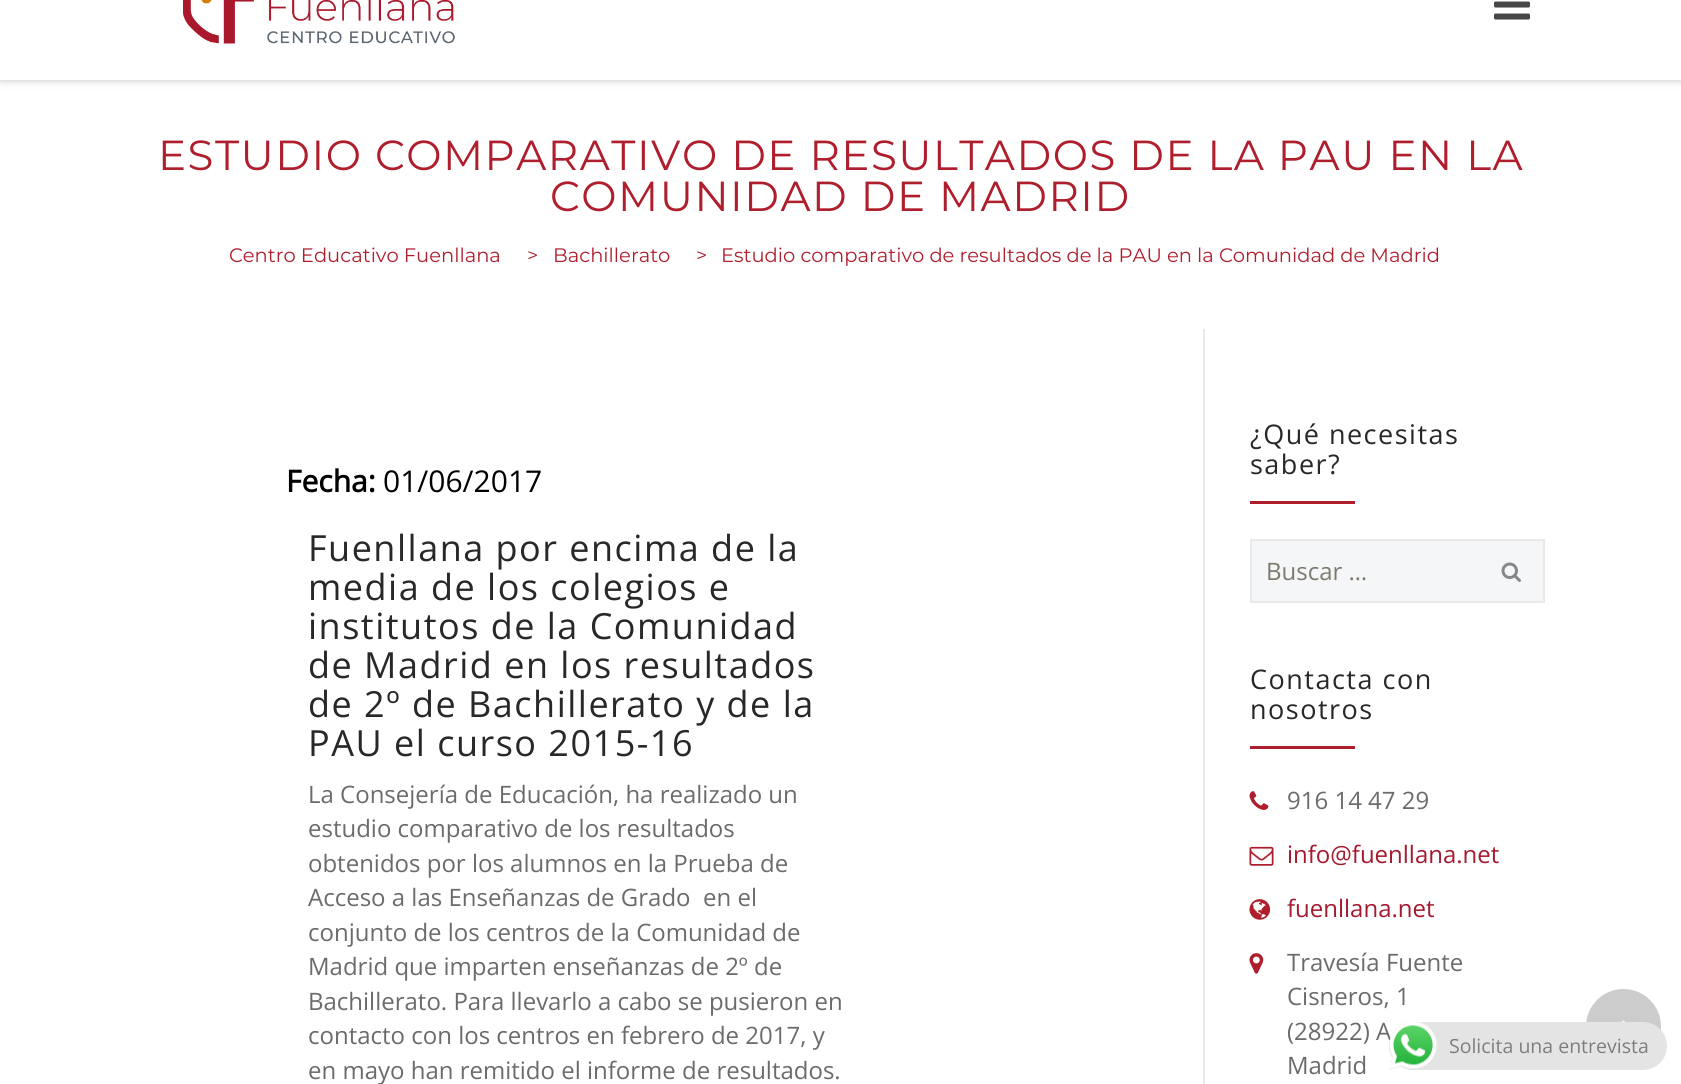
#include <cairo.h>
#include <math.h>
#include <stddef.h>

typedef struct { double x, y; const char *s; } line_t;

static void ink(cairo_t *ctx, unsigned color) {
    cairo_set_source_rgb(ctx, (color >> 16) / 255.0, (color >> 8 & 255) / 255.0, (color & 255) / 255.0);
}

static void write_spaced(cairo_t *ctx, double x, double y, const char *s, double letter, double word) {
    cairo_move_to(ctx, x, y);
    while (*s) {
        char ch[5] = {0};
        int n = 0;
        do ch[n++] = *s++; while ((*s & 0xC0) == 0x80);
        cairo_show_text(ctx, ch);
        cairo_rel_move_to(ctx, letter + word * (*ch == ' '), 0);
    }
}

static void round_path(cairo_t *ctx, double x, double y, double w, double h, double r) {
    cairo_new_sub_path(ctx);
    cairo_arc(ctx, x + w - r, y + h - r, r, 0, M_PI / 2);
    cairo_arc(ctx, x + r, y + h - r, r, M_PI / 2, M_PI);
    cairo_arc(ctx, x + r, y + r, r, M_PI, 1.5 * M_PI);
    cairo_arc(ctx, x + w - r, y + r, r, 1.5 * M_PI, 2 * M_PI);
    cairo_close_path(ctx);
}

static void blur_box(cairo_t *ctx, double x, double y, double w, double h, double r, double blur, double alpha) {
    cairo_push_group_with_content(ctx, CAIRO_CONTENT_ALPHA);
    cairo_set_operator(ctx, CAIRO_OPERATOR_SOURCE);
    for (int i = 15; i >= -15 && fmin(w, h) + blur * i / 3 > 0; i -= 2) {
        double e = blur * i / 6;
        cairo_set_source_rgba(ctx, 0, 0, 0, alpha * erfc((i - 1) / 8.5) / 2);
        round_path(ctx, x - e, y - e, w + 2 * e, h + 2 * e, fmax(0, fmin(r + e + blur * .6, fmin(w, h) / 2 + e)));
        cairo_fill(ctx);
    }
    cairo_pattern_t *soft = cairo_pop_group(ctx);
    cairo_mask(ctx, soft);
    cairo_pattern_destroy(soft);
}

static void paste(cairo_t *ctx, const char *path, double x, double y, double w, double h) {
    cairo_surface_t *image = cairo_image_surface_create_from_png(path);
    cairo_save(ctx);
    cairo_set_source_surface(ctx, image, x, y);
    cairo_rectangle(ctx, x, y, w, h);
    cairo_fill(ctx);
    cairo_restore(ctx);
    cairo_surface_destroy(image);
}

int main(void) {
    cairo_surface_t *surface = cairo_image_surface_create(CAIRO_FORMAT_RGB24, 1681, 1084);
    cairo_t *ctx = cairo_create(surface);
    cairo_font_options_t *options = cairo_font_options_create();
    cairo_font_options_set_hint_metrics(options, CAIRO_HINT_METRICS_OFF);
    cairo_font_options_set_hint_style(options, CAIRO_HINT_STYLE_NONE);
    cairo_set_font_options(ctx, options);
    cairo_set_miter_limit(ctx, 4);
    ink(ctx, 0xFFFFFF);
    cairo_paint(ctx);
    ink(ctx, 0x000000);
    blur_box(ctx, 0, -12, 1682, 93, 0, 4, 0.2);
    ink(ctx, 0xFFFFFF);
    cairo_rectangle(ctx, 0, 0, 1681, 80);
    cairo_fill(ctx);
    paste(ctx, "media/1.png", 183, 0, 272, 44);
    paste(ctx, "media/2.png", 1494, 1, 36, 19);
    cairo_select_font_face(ctx, "Montserrat Thin", CAIRO_FONT_SLANT_NORMAL, CAIRO_FONT_WEIGHT_NORMAL);
    cairo_set_font_size(ctx, 42);
    ink(ctx, 0xAF1E2D);
    write_spaced(ctx, 158, 170, "ESTUDIO COMPARATIVO DE RESULTADOS DE LA PAU EN LA", 1.5, 0);
    write_spaced(ctx, 550, 211, "COMUNIDAD DE MADRID", 1.5, 0);
    cairo_set_font_size(ctx, 19.5);
    {
        static const line_t items[] = {
            {229, 262, "Centro Educativo Fuenllana"},
            {527, 262, ">"},
            {553, 262, "Bachillerato"},
            {696, 262, ">"},
            {721, 262, "Estudio comparativo de resultados de la PAU en la Comunidad de Madrid"},
        };
        for (size_t i = 0; i < sizeof items / sizeof *items; i++) {
            cairo_move_to(ctx, items[i].x, items[i].y);
            cairo_show_text(ctx, items[i].s);
        }
    }
    cairo_select_font_face(ctx, "Open Sans", CAIRO_FONT_SLANT_NORMAL, CAIRO_FONT_WEIGHT_BOLD);
    cairo_set_font_size(ctx, 30);
    ink(ctx, 0x000000);
    cairo_move_to(ctx, 286, 492);
    cairo_show_text(ctx, "Fecha:");
    cairo_select_font_face(ctx, "Open Sans", CAIRO_FONT_SLANT_NORMAL, CAIRO_FONT_WEIGHT_NORMAL);
    cairo_move_to(ctx, 383, 492);
    cairo_show_text(ctx, "01/06/2017");
    cairo_set_font_size(ctx, 36);
    ink(ctx, 0x282828);
    {
        static const line_t items[] = {
            {308, 561, "Fuenllana por encima de la"},
            {308, 600, "media de los colegios e"},
            {308, 639, "institutos de la Comunidad"},
            {308, 678, "de Madrid en los resultados"},
            {308, 717, "de 2º de Bachillerato y de la"},
            {308, 756, "PAU el curso 2015-16"},
        };
        for (size_t i = 0; i < sizeof items / sizeof *items; i++) {
            write_spaced(ctx, items[i].x, items[i].y, items[i].s, 1.5, 0);
        }
    }
    cairo_set_font_size(ctx, 24);
    ink(ctx, 0x6B6B6B);
    {
        static const line_t items[] = {
            {308, 803, "La Consejería de Educación, ha realizado un"},
            {308, 837, "estudio comparativo de los resultados"},
            {308, 872, "obtenidos por los alumnos en la Prueba de"},
            {308, 906, "Acceso a las Enseñanzas de Grado  en el"},
            {308, 941, "conjunto de los centros de la Comunidad de"},
            {308, 975, "Madrid que imparten enseñanzas de 2º de"},
            {308, 1010, "Bachillerato. Para llevarlo a cabo se pusieron en"},
            {308, 1044, "contacto con los centros en febrero de 2017, y"},
            {308, 1079, "en mayo han remitido el informe de resultados."},
        };
        for (size_t i = 0; i < sizeof items / sizeof *items; i++) {
            cairo_move_to(ctx, items[i].x, items[i].y);
            cairo_show_text(ctx, items[i].s);
        }
    }
    ink(ctx, 0xEAEAEA);
    cairo_rectangle(ctx, 1203, 329, 2, 755);
    cairo_fill(ctx);
    cairo_set_font_size(ctx, 27);
    ink(ctx, 0x282828);
    write_spaced(ctx, 1250, 444, "¿Qué necesitas", 1.5, 0);
    write_spaced(ctx, 1250, 474, "saber?", 1.5, 0);
    ink(ctx, 0xAF1E2D);
    cairo_rectangle(ctx, 1250, 501, 105, 3);
    cairo_fill(ctx);
    ink(ctx, 0xF5F6F8);
    cairo_rectangle(ctx, 1251, 540, 293, 62);
    cairo_fill_preserve(ctx);
    ink(ctx, 0xE9E9E9);
    cairo_stroke(ctx);
    cairo_set_font_size(ctx, 24);
    ink(ctx, 0x7D7B6D);
    cairo_move_to(ctx, 1266, 580);
    cairo_show_text(ctx, "Buscar …");
    paste(ctx, "media/3.png", 1501, 562, 20, 20);
    cairo_set_font_size(ctx, 27);
    ink(ctx, 0x282828);
    write_spaced(ctx, 1250, 689, "Contacta con", 1.5, 0);
    write_spaced(ctx, 1250, 719, "nosotros", 1.5, 0);
    ink(ctx, 0xAF1E2D);
    cairo_rectangle(ctx, 1250, 746, 105, 3);
    cairo_fill(ctx);
    paste(ctx, "media/4.png", 1249, 791, 20, 19);
    cairo_set_font_size(ctx, 24);
    ink(ctx, 0x6B6B6B);
    cairo_move_to(ctx, 1287, 809);
    cairo_show_text(ctx, "916 14 47 29");
    paste(ctx, "media/5.png", 1249, 846, 25, 20);
    ink(ctx, 0xA6192E);
    cairo_move_to(ctx, 1287, 863);
    cairo_show_text(ctx, "info@fuenllana.net");
    paste(ctx, "media/6.png", 1249, 899, 22, 21);
    cairo_move_to(ctx, 1287, 917);
    cairo_show_text(ctx, "fuenllana.net");
    paste(ctx, "media/7.png", 1249, 953, 15, 21);
    ink(ctx, 0x6B6B6B);
    {
        static const line_t items[] = {
            {1287, 971, "Travesía Fuente"},
            {1287, 1005, "Cisneros, 1"},
            {1287, 1040, "(28922) A"},
            {1287, 1074, "Madrid"},
        };
        for (size_t i = 0; i < sizeof items / sizeof *items; i++) {
            cairo_move_to(ctx, items[i].x, items[i].y);
            cairo_show_text(ctx, items[i].s);
        }
    }
    ink(ctx, 0xCCCCCC);
    cairo_new_path(ctx);
    cairo_arc(ctx, 1623.5, 1026.5, 37.5, 0, 2 * M_PI);
    cairo_fill(ctx);
    paste(ctx, "media/8.png", 1621, 1020, 4, 2);
    ink(ctx, 0xE4E4E4);
    round_path(ctx, 1389, 1022, 278, 48, 24);
    cairo_fill(ctx);
    paste(ctx, "media/9.png", 1389, 1021, 48, 49);
    cairo_set_font_size(ctx, 19.5);
    ink(ctx, 0x7F7D7D);
    cairo_move_to(ctx, 1449, 1053);
    cairo_show_text(ctx, "Solicita una entrevista");
    cairo_surface_write_to_png(surface, "image.png");
    cairo_font_options_destroy(options);
    cairo_destroy(ctx);
    cairo_surface_destroy(surface);
    return 0;
}
